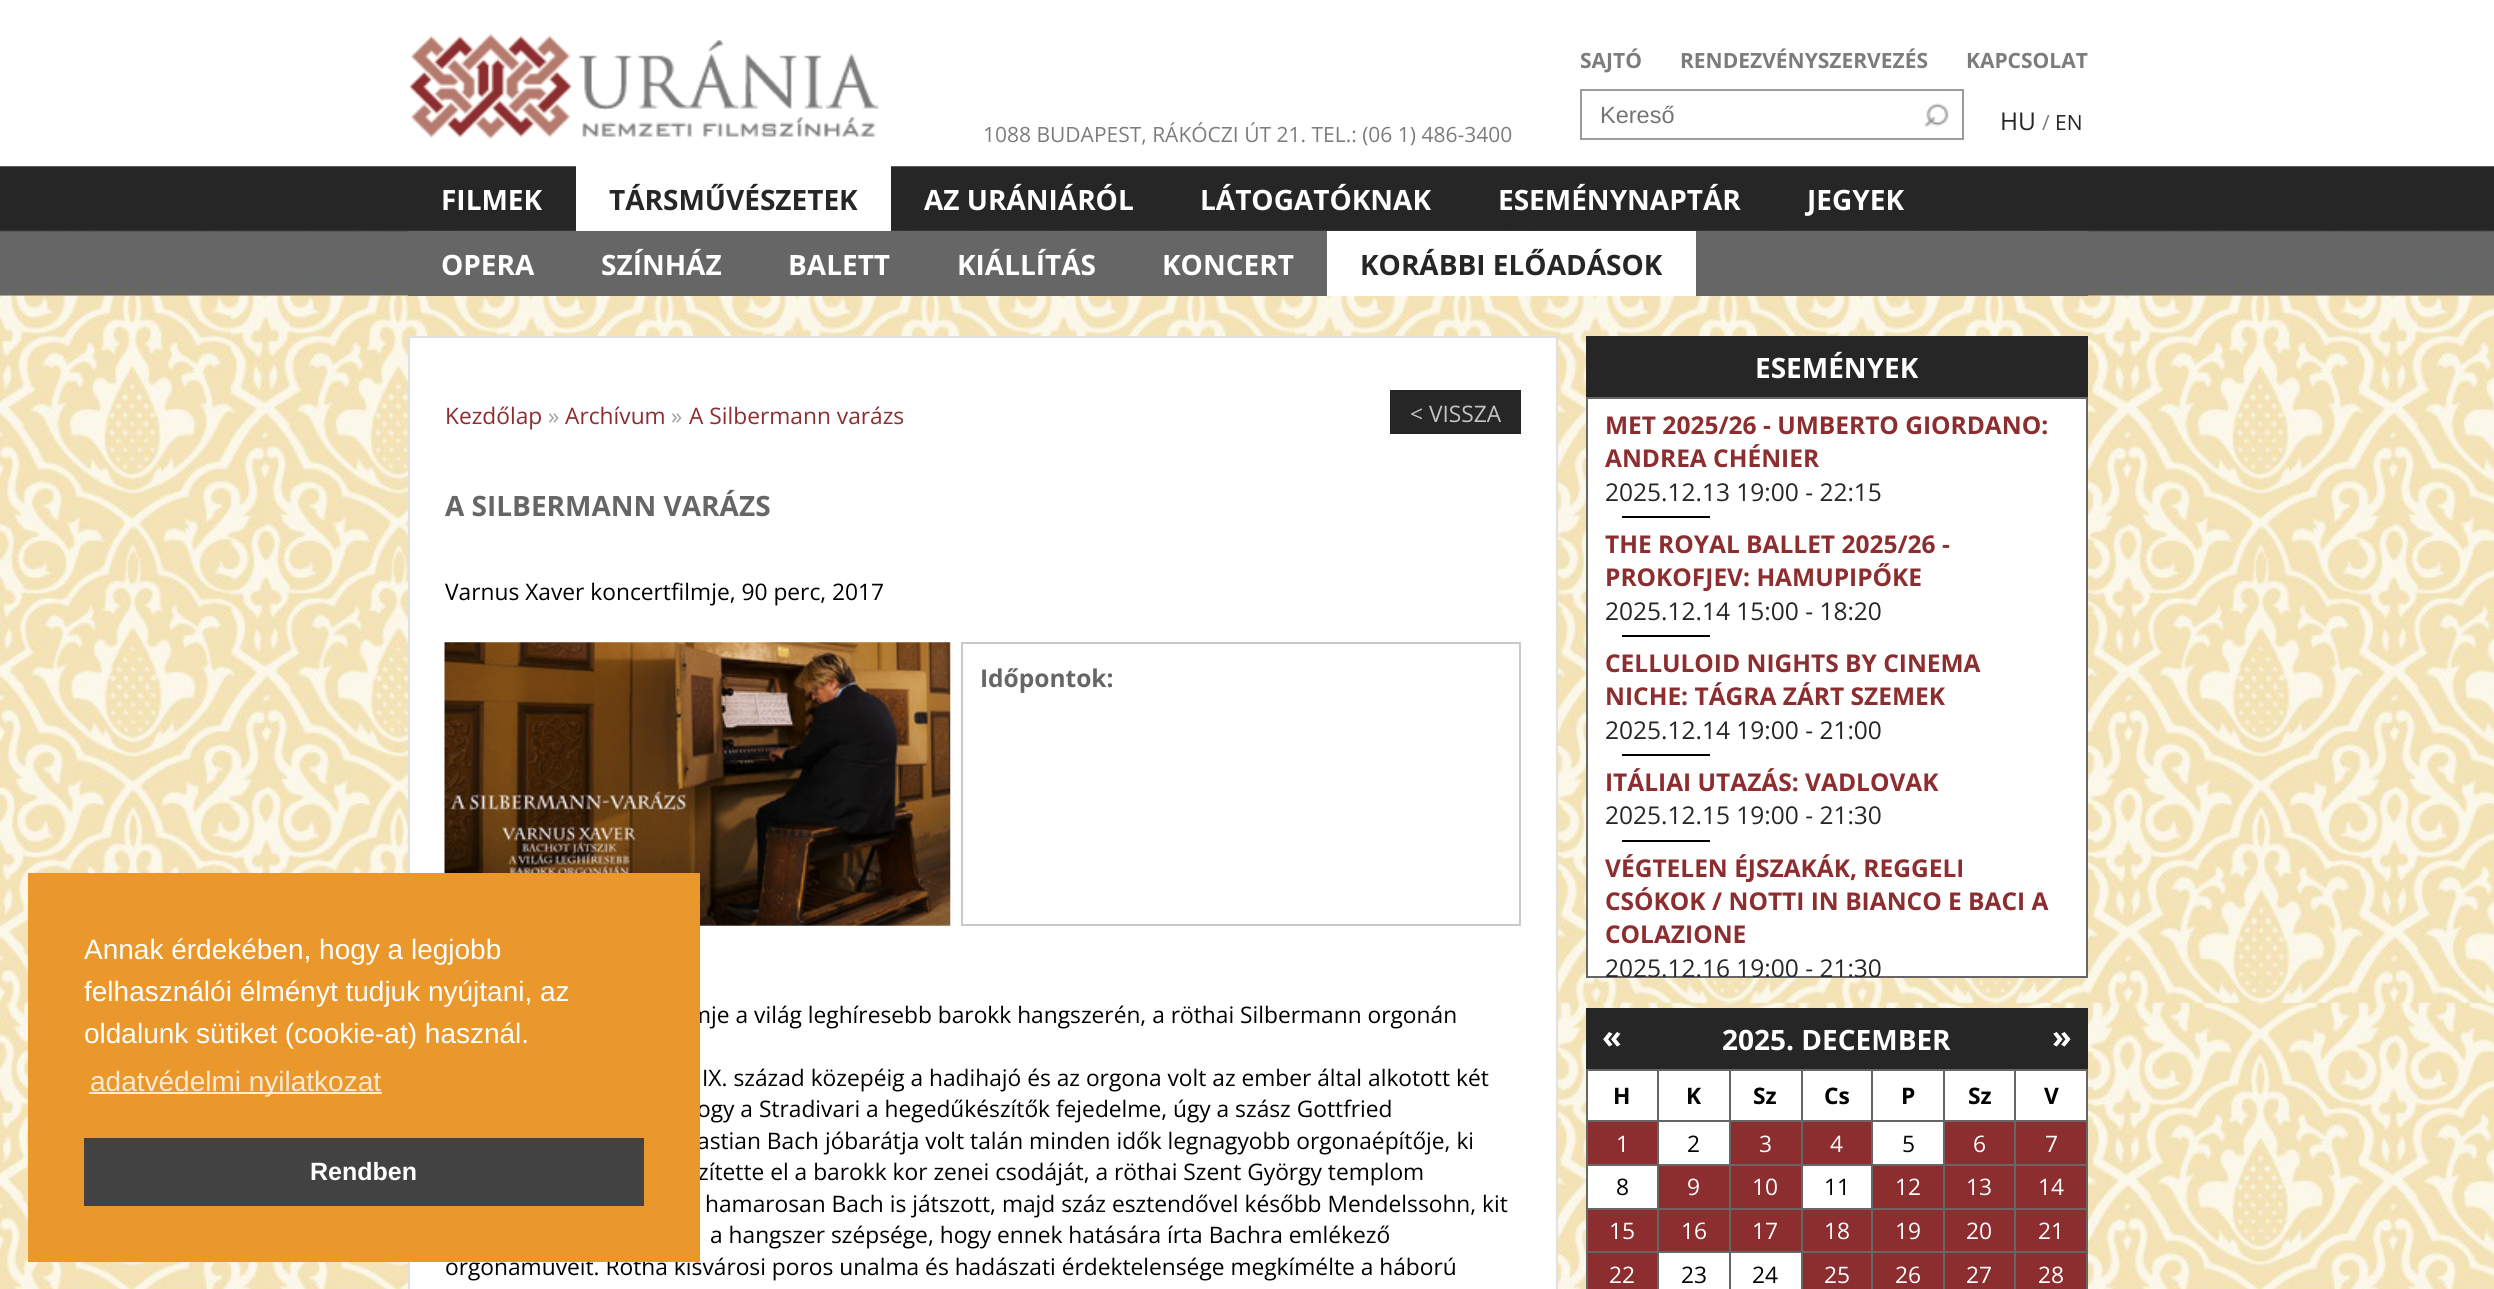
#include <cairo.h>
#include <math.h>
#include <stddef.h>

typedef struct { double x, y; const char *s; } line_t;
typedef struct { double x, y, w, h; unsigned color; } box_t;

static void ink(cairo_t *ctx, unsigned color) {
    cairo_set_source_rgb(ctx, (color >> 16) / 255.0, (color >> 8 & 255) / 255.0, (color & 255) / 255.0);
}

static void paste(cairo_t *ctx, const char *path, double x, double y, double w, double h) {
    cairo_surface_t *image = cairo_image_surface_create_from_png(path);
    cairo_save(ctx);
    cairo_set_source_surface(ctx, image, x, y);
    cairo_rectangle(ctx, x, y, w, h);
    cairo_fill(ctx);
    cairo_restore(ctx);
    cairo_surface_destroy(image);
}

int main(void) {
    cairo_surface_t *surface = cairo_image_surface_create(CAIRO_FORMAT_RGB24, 2494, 1289);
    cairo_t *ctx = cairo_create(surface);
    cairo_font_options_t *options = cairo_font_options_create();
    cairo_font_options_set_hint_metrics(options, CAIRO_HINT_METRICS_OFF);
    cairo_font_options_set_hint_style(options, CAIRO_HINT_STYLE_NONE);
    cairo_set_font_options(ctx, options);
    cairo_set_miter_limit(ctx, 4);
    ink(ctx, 0xFFFFFF);
    cairo_paint(ctx);
    paste(ctx, "media/3.png", 0, 166, 2494, 130);
    paste(ctx, "media/4.png", 0, 295, 2494, 994);
    ink(ctx, 0xFFFFFF);
    cairo_rectangle(ctx, 409, 337, 1148, 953);
    cairo_fill_preserve(ctx);
    ink(ctx, 0xE0E0E0);
    cairo_stroke(ctx);
    paste(ctx, "media/5.png", 444, 642, 507, 284);
    cairo_select_font_face(ctx, "Open Sans", CAIRO_FONT_SLANT_NORMAL, CAIRO_FONT_WEIGHT_NORMAL);
    cairo_set_font_size(ctx, 22.75);
    ink(ctx, 0x000000);
    {
        static const line_t items[] = {
            {690, 1023, "mje a világ leghíresebb barokk hangszerén, a röthai Silbermann orgonán"},
            {697, 1117, "ogy a Stradivari a hegedűkészítők fejedelme, úgy a szász Gottfried"},
            {697, 1149, "astian Bach jóbarátja volt talán minden idők legnagyobb orgonaépítője, ki"},
            {698, 1180, "zítette el a barokk kor zenei csodáját, a röthai Szent György templom"},
            {445, 1275, "orgonaműveit. Rötha kisvárosi poros unalma és hadászati érdektelensége megkímélte a háború"},
        };
        for (size_t i = 0; i < sizeof items / sizeof *items; i++) {
            cairo_move_to(ctx, items[i].x, items[i].y);
            cairo_show_text(ctx, items[i].s);
        }
    }
    ink(ctx, 0xEA972B);
    cairo_rectangle(ctx, 28, 873, 672, 389);
    cairo_fill(ctx);
    cairo_select_font_face(ctx, "Liberation Sans", CAIRO_FONT_SLANT_NORMAL, CAIRO_FONT_WEIGHT_NORMAL);
    cairo_set_font_size(ctx, 28);
    ink(ctx, 0xFFFFFF);
    {
        static const line_t items[] = {
            {84, 959, "Annak érdekében, hogy a legjobb"},
            {84, 1001, "felhasználói élményt tudjuk nyújtani, az"},
            {84, 1043, "oldalunk sütiket (cookie-at) használ."},
        };
        for (size_t i = 0; i < sizeof items / sizeof *items; i++) {
            cairo_move_to(ctx, items[i].x, items[i].y);
            cairo_show_text(ctx, items[i].s);
        }
    }
    ink(ctx, 0xFBEAD5);
    cairo_rectangle(ctx, 89, 1092, 293, 2);
    cairo_fill(ctx);
    cairo_move_to(ctx, 90, 1091);
    cairo_show_text(ctx, "adatvédelmi nyilatkozat");
    ink(ctx, 0x424242);
    cairo_rectangle(ctx, 84, 1138, 560, 68);
    cairo_fill(ctx);
    cairo_select_font_face(ctx, "Liberation Sans", CAIRO_FONT_SLANT_NORMAL, CAIRO_FONT_WEIGHT_BOLD);
    cairo_set_font_size(ctx, 25);
    ink(ctx, 0xFFFFFF);
    cairo_move_to(ctx, 310, 1180);
    cairo_show_text(ctx, "Rendben");
    paste(ctx, "media/1.png", 409, 33, 470, 107);
    cairo_select_font_face(ctx, "Open Sans", CAIRO_FONT_SLANT_NORMAL, CAIRO_FONT_WEIGHT_BOLD);
    cairo_set_font_size(ctx, 21);
    ink(ctx, 0x7C7C7B);
    {
        static const line_t items[] = {
            {1580, 68, "SAJTÓ"},
            {1680, 68, "RENDEZVÉNYSZERVEZÉS"},
            {1966, 68, "KAPCSOLAT"},
        };
        for (size_t i = 0; i < sizeof items / sizeof *items; i++) {
            cairo_move_to(ctx, items[i].x, items[i].y);
            cairo_show_text(ctx, items[i].s);
        }
    }
    paste(ctx, "media/2.png", 1924, 103, 25, 24);
    cairo_rectangle(ctx, 1581, 90, 382, 49);
    ink(ctx, 0x9C9C9C);
    cairo_stroke(ctx);
    cairo_select_font_face(ctx, "Liberation Sans", CAIRO_FONT_SLANT_NORMAL, CAIRO_FONT_WEIGHT_NORMAL);
    cairo_set_font_size(ctx, 23.5);
    ink(ctx, 0x757575);
    cairo_move_to(ctx, 1600, 123);
    cairo_show_text(ctx, "Kereső");
    cairo_select_font_face(ctx, "Open Sans", CAIRO_FONT_SLANT_NORMAL, CAIRO_FONT_WEIGHT_NORMAL);
    cairo_set_font_size(ctx, 24.5);
    ink(ctx, 0x262626);
    cairo_move_to(ctx, 2000, 130);
    cairo_show_text(ctx, "HU");
    cairo_set_font_size(ctx, 21);
    ink(ctx, 0x7C7C7B);
    cairo_move_to(ctx, 2042, 130);
    cairo_show_text(ctx, "/");
    ink(ctx, 0x262626);
    cairo_move_to(ctx, 2055, 130);
    cairo_show_text(ctx, "EN");
    ink(ctx, 0x7C7C7B);
    cairo_move_to(ctx, 983, 142);
    cairo_show_text(ctx, "1088 BUDAPEST, RÁKÓCZI ÚT 21. TEL.: (06 1) 486-3400");
    ink(ctx, 0xFFFFFF);
    cairo_rectangle(ctx, 576, 166, 315, 65);
    cairo_fill(ctx);
    cairo_select_font_face(ctx, "Open Sans", CAIRO_FONT_SLANT_NORMAL, CAIRO_FONT_WEIGHT_BOLD);
    cairo_set_font_size(ctx, 28);
    ink(ctx, 0x262626);
    cairo_move_to(ctx, 609, 210);
    cairo_show_text(ctx, "TÁRSMŰVÉSZETEK");
    ink(ctx, 0x666666);
    cairo_rectangle(ctx, 408, 231, 1680, 65);
    cairo_fill(ctx);
    ink(ctx, 0xFFFFFF);
    {
        static const line_t items[] = {
            {441, 275, "OPERA"},
            {601, 275, "SZÍNHÁZ"},
            {788, 275, "BALETT"},
            {957, 275, "KIÁLLÍTÁS"},
            {1162, 275, "KONCERT"},
        };
        for (size_t i = 0; i < sizeof items / sizeof *items; i++) {
            cairo_move_to(ctx, items[i].x, items[i].y);
            cairo_show_text(ctx, items[i].s);
        }
    }
    cairo_rectangle(ctx, 1327, 231, 369, 65);
    cairo_fill(ctx);
    ink(ctx, 0x262626);
    cairo_move_to(ctx, 1360, 275);
    cairo_show_text(ctx, "KORÁBBI ELŐADÁSOK");
    ink(ctx, 0xFFFFFF);
    {
        static const line_t items[] = {
            {441, 210, "FILMEK"},
            {924, 210, "AZ URÁNIÁRÓL"},
            {1200, 210, "LÁTOGATÓKNAK"},
            {1498, 210, "ESEMÉNYNAPTÁR"},
            {1807, 210, "JEGYEK"},
        };
        for (size_t i = 0; i < sizeof items / sizeof *items; i++) {
            cairo_move_to(ctx, items[i].x, items[i].y);
            cairo_show_text(ctx, items[i].s);
        }
    }
    cairo_select_font_face(ctx, "Open Sans", CAIRO_FONT_SLANT_NORMAL, CAIRO_FONT_WEIGHT_NORMAL);
    cairo_set_font_size(ctx, 22.75);
    ink(ctx, 0x8C2D2F);
    cairo_move_to(ctx, 445, 424);
    cairo_show_text(ctx, "Kezdőlap");
    ink(ctx, 0xA3A2A2);
    cairo_move_to(ctx, 548, 424);
    cairo_show_text(ctx, "»");
    ink(ctx, 0x8C2D2F);
    cairo_move_to(ctx, 565, 424);
    cairo_show_text(ctx, "Archívum");
    ink(ctx, 0xA3A2A2);
    cairo_move_to(ctx, 671, 424);
    cairo_show_text(ctx, "»");
    ink(ctx, 0x8C2D2F);
    cairo_move_to(ctx, 689, 424);
    cairo_show_text(ctx, "A Silbermann varázs");
    ink(ctx, 0x262626);
    cairo_rectangle(ctx, 1390, 390, 131, 44);
    cairo_fill(ctx);
    ink(ctx, 0xC3C3C3);
    cairo_move_to(ctx, 1410, 422);
    cairo_show_text(ctx, "< VISSZA");
    cairo_select_font_face(ctx, "Open Sans", CAIRO_FONT_SLANT_NORMAL, CAIRO_FONT_WEIGHT_BOLD);
    cairo_set_font_size(ctx, 28);
    ink(ctx, 0x666666);
    cairo_move_to(ctx, 445, 516);
    cairo_show_text(ctx, "A SILBERMANN VARÁZS");
    cairo_select_font_face(ctx, "Open Sans", CAIRO_FONT_SLANT_NORMAL, CAIRO_FONT_WEIGHT_NORMAL);
    cairo_set_font_size(ctx, 22.75);
    ink(ctx, 0x000000);
    cairo_move_to(ctx, 445, 600);
    cairo_show_text(ctx, "Varnus Xaver koncertfilmje, 90 perc, 2017");
    cairo_rectangle(ctx, 962, 643, 558, 282);
    ink(ctx, 0xC9C9C9);
    cairo_stroke(ctx);
    cairo_select_font_face(ctx, "Open Sans", CAIRO_FONT_SLANT_NORMAL, CAIRO_FONT_WEIGHT_BOLD);
    cairo_set_font_size(ctx, 24.5);
    ink(ctx, 0x666666);
    cairo_move_to(ctx, 980, 687);
    cairo_show_text(ctx, "Időpontok:");
    cairo_select_font_face(ctx, "Open Sans", CAIRO_FONT_SLANT_NORMAL, CAIRO_FONT_WEIGHT_NORMAL);
    cairo_set_font_size(ctx, 22.75);
    ink(ctx, 0x000000);
    {
        static const line_t items[] = {
            {702, 1086, "IX. század közepéig a hadihajó és az orgona volt az ember által alkotott két"},
            {705, 1212, "hamarosan Bach is játszott, majd száz esztendővel később Mendelssohn, kit"},
            {710, 1243, "a hangszer szépsége, hogy ennek hatására írta Bachra emlékező"},
        };
        for (size_t i = 0; i < sizeof items / sizeof *items; i++) {
            cairo_move_to(ctx, items[i].x, items[i].y);
            cairo_show_text(ctx, items[i].s);
        }
    }
    ink(ctx, 0x262626);
    cairo_rectangle(ctx, 1586, 336, 502, 61);
    cairo_fill(ctx);
    cairo_select_font_face(ctx, "Open Sans", CAIRO_FONT_SLANT_NORMAL, CAIRO_FONT_WEIGHT_BOLD);
    cairo_set_font_size(ctx, 28);
    ink(ctx, 0xFFFFFF);
    cairo_move_to(ctx, 1755, 378);
    cairo_show_text(ctx, "ESEMÉNYEK");
    cairo_rectangle(ctx, 1587, 398, 500, 579);
    cairo_fill_preserve(ctx);
    ink(ctx, 0x666666);
    cairo_stroke(ctx);
    cairo_set_font_size(ctx, 24.5);
    ink(ctx, 0x8C2D2F);
    cairo_move_to(ctx, 1605, 434);
    cairo_show_text(ctx, "MET 2025/26 - UMBERTO GIORDANO:");
    cairo_move_to(ctx, 1605, 467);
    cairo_show_text(ctx, "ANDREA CHÉNIER");
    cairo_select_font_face(ctx, "Open Sans", CAIRO_FONT_SLANT_NORMAL, CAIRO_FONT_WEIGHT_NORMAL);
    ink(ctx, 0x262626);
    cairo_move_to(ctx, 1605, 501);
    cairo_show_text(ctx, "2025.12.13 19:00 - 22:15");
    ink(ctx, 0x000000);
    cairo_rectangle(ctx, 1622, 516, 88, 2);
    cairo_fill(ctx);
    cairo_select_font_face(ctx, "Open Sans", CAIRO_FONT_SLANT_NORMAL, CAIRO_FONT_WEIGHT_BOLD);
    ink(ctx, 0x8C2D2F);
    cairo_move_to(ctx, 1605, 553);
    cairo_show_text(ctx, "THE ROYAL BALLET 2025/26 -");
    cairo_move_to(ctx, 1605, 586);
    cairo_show_text(ctx, "PROKOFJEV: HAMUPIPŐKE");
    cairo_select_font_face(ctx, "Open Sans", CAIRO_FONT_SLANT_NORMAL, CAIRO_FONT_WEIGHT_NORMAL);
    ink(ctx, 0x262626);
    cairo_move_to(ctx, 1605, 620);
    cairo_show_text(ctx, "2025.12.14 15:00 - 18:20");
    ink(ctx, 0x000000);
    cairo_rectangle(ctx, 1622, 635, 88, 2);
    cairo_fill(ctx);
    cairo_select_font_face(ctx, "Open Sans", CAIRO_FONT_SLANT_NORMAL, CAIRO_FONT_WEIGHT_BOLD);
    ink(ctx, 0x8C2D2F);
    cairo_move_to(ctx, 1605, 672);
    cairo_show_text(ctx, "CELLULOID NIGHTS BY CINEMA");
    cairo_move_to(ctx, 1605, 705);
    cairo_show_text(ctx, "NICHE: TÁGRA ZÁRT SZEMEK");
    cairo_select_font_face(ctx, "Open Sans", CAIRO_FONT_SLANT_NORMAL, CAIRO_FONT_WEIGHT_NORMAL);
    ink(ctx, 0x262626);
    cairo_move_to(ctx, 1605, 739);
    cairo_show_text(ctx, "2025.12.14 19:00 - 21:00");
    ink(ctx, 0x000000);
    cairo_rectangle(ctx, 1622, 754, 88, 2);
    cairo_fill(ctx);
    cairo_select_font_face(ctx, "Open Sans", CAIRO_FONT_SLANT_NORMAL, CAIRO_FONT_WEIGHT_BOLD);
    ink(ctx, 0x8C2D2F);
    cairo_move_to(ctx, 1605, 791);
    cairo_show_text(ctx, "ITÁLIAI UTAZÁS: VADLOVAK");
    cairo_select_font_face(ctx, "Open Sans", CAIRO_FONT_SLANT_NORMAL, CAIRO_FONT_WEIGHT_NORMAL);
    ink(ctx, 0x262626);
    cairo_move_to(ctx, 1605, 824);
    cairo_show_text(ctx, "2025.12.15 19:00 - 21:30");
    ink(ctx, 0x000000);
    cairo_rectangle(ctx, 1622, 840, 88, 2);
    cairo_fill(ctx);
    cairo_select_font_face(ctx, "Open Sans", CAIRO_FONT_SLANT_NORMAL, CAIRO_FONT_WEIGHT_BOLD);
    ink(ctx, 0x8C2D2F);
    {
        static const line_t items[] = {
            {1605, 877, "VÉGTELEN ÉJSZAKÁK, REGGELI"},
            {1605, 910, "CSÓKOK / NOTTI IN BIANCO E BACI A"},
            {1605, 943, "COLAZIONE"},
        };
        for (size_t i = 0; i < sizeof items / sizeof *items; i++) {
            cairo_move_to(ctx, items[i].x, items[i].y);
            cairo_show_text(ctx, items[i].s);
        }
    }
    cairo_save(ctx);
    cairo_rectangle(ctx, 1587, 399, 499, 578);
    cairo_clip(ctx);
    cairo_select_font_face(ctx, "Open Sans", CAIRO_FONT_SLANT_NORMAL, CAIRO_FONT_WEIGHT_NORMAL);
    ink(ctx, 0x262626);
    cairo_move_to(ctx, 1605, 977);
    cairo_show_text(ctx, "2025.12.16 19:00 - 21:30");
    cairo_restore(ctx);
    ink(ctx, 0xFFFFFF);
    cairo_rectangle(ctx, 1588, 1071, 498, 218);
    cairo_fill(ctx);
    ink(ctx, 0x262626);
    cairo_rectangle(ctx, 1586, 1008, 502, 61);
    cairo_fill(ctx);
    cairo_set_font_size(ctx, 32);
    ink(ctx, 0xFFFFFF);
    cairo_move_to(ctx, 1602, 1048);
    cairo_show_text(ctx, "«");
    cairo_set_font_size(ctx, 28);
    cairo_move_to(ctx, 1722, 1050);
    cairo_show_text(ctx, "2025. DECEMBER");
    cairo_set_font_size(ctx, 32);
    cairo_move_to(ctx, 2052, 1048);
    cairo_show_text(ctx, "»");
    {
        static const box_t items[] = {
            {1586, 1069, 502, 2, 0x666666},
            {2086, 1069, 2, 220, 0x666666},
            {1586, 1069, 2, 220, 0x666666},
        };
        for (size_t i = 0; i < sizeof items / sizeof *items; i++) {
            ink(ctx, items[i].color);
            cairo_rectangle(ctx, items[i].x, items[i].y, items[i].w, items[i].h);
            cairo_fill(ctx);
        }
    }
    cairo_set_font_size(ctx, 22.75);
    ink(ctx, 0x000000);
    cairo_move_to(ctx, 1613, 1104);
    cairo_show_text(ctx, "H");
    {
        static const box_t items[] = {
            {2014, 1120, 74, 2, 0x666666},
            {2014, 1164, 74, 2, 0x666666},
            {2014, 1208, 74, 2, 0x666666},
            {2014, 1251, 74, 2, 0x666666},
            {2014, 1251, 2, 38, 0x666666},
            {1943, 1251, 73, 2, 0x666666},
            {2014, 1208, 2, 45, 0x666666},
            {1943, 1208, 73, 2, 0x666666},
            {2014, 1164, 2, 45, 0x666666},
            {1943, 1164, 73, 2, 0x666666},
            {2014, 1120, 2, 46, 0x666666},
            {1943, 1120, 73, 2, 0x666666},
            {1943, 1251, 2, 38, 0x666666},
            {1871, 1251, 73, 2, 0x666666},
            {1943, 1208, 2, 45, 0x666666},
            {1871, 1208, 73, 2, 0x666666},
            {1943, 1164, 2, 45, 0x666666},
            {1871, 1164, 73, 2, 0x666666},
            {1943, 1120, 2, 46, 0x666666},
            {1871, 1120, 73, 2, 0x666666},
            {1871, 1251, 2, 38, 0x666666},
            {1801, 1251, 72, 2, 0x666666},
            {1871, 1208, 2, 45, 0x666666},
            {1801, 1208, 72, 2, 0x666666},
            {1871, 1164, 2, 45, 0x666666},
            {1801, 1164, 72, 2, 0x666666},
            {1871, 1120, 2, 46, 0x666666},
            {1801, 1120, 72, 2, 0x666666},
            {1801, 1251, 2, 38, 0x666666},
            {1729, 1251, 74, 2, 0x666666},
            {1801, 1208, 2, 45, 0x666666},
            {1729, 1208, 74, 2, 0x666666},
            {1801, 1164, 2, 45, 0x666666},
            {1729, 1164, 74, 2, 0x666666},
            {1801, 1120, 2, 46, 0x666666},
            {1729, 1120, 74, 2, 0x666666},
            {1729, 1251, 2, 38, 0x666666},
            {1657, 1251, 74, 2, 0x666666},
            {1729, 1208, 2, 45, 0x666666},
            {1657, 1208, 74, 2, 0x666666},
            {1729, 1164, 2, 45, 0x666666},
            {1657, 1164, 74, 2, 0x666666},
            {1729, 1120, 2, 46, 0x666666},
            {1657, 1120, 74, 2, 0x666666},
            {1657, 1251, 2, 38, 0x666666},
            {1586, 1251, 73, 2, 0x666666},
            {1657, 1208, 2, 45, 0x666666},
            {1586, 1208, 73, 2, 0x666666},
            {1657, 1164, 2, 45, 0x666666},
            {1586, 1164, 73, 2, 0x666666},
            {1657, 1120, 2, 46, 0x666666},
            {1586, 1120, 73, 2, 0x666666},
            {1657, 1069, 2, 53, 0x666666},
        };
        for (size_t i = 0; i < sizeof items / sizeof *items; i++) {
            ink(ctx, items[i].color);
            cairo_rectangle(ctx, items[i].x, items[i].y, items[i].w, items[i].h);
            cairo_fill(ctx);
        }
    }
    ink(ctx, 0x000000);
    cairo_move_to(ctx, 1686, 1104);
    cairo_show_text(ctx, "K");
    ink(ctx, 0x666666);
    cairo_rectangle(ctx, 1729, 1069, 2, 53);
    cairo_fill(ctx);
    ink(ctx, 0x000000);
    cairo_move_to(ctx, 1753, 1104);
    cairo_show_text(ctx, "Sz");
    ink(ctx, 0x666666);
    cairo_rectangle(ctx, 1801, 1069, 2, 53);
    cairo_fill(ctx);
    ink(ctx, 0x000000);
    cairo_move_to(ctx, 1824, 1104);
    cairo_show_text(ctx, "Cs");
    ink(ctx, 0x666666);
    cairo_rectangle(ctx, 1871, 1069, 2, 53);
    cairo_fill(ctx);
    ink(ctx, 0x000000);
    cairo_move_to(ctx, 1901, 1104);
    cairo_show_text(ctx, "P");
    ink(ctx, 0x666666);
    cairo_rectangle(ctx, 1943, 1069, 2, 53);
    cairo_fill(ctx);
    ink(ctx, 0x000000);
    cairo_move_to(ctx, 1968, 1104);
    cairo_show_text(ctx, "Sz");
    ink(ctx, 0x666666);
    cairo_rectangle(ctx, 2014, 1069, 2, 53);
    cairo_fill(ctx);
    ink(ctx, 0x000000);
    cairo_move_to(ctx, 2044, 1104);
    cairo_show_text(ctx, "V");
    ink(ctx, 0x8C2D2F);
    cairo_rectangle(ctx, 1588, 1122, 69, 42);
    cairo_fill(ctx);
    cairo_select_font_face(ctx, "Open Sans", CAIRO_FONT_SLANT_NORMAL, CAIRO_FONT_WEIGHT_NORMAL);
    ink(ctx, 0xFFFFFF);
    cairo_move_to(ctx, 1616, 1152);
    cairo_show_text(ctx, "1");
    ink(ctx, 0x000000);
    cairo_move_to(ctx, 1687, 1152);
    cairo_show_text(ctx, "2");
    ink(ctx, 0x8C2D2F);
    cairo_rectangle(ctx, 1731, 1122, 70, 42);
    cairo_fill(ctx);
    ink(ctx, 0xFFFFFF);
    cairo_move_to(ctx, 1759, 1152);
    cairo_show_text(ctx, "3");
    ink(ctx, 0x8C2D2F);
    cairo_rectangle(ctx, 1803, 1122, 68, 42);
    cairo_fill(ctx);
    ink(ctx, 0xFFFFFF);
    cairo_move_to(ctx, 1830, 1152);
    cairo_show_text(ctx, "4");
    ink(ctx, 0x000000);
    cairo_move_to(ctx, 1902, 1152);
    cairo_show_text(ctx, "5");
    ink(ctx, 0x8C2D2F);
    cairo_rectangle(ctx, 1945, 1122, 69, 42);
    cairo_fill(ctx);
    ink(ctx, 0xFFFFFF);
    cairo_move_to(ctx, 1973, 1152);
    cairo_show_text(ctx, "6");
    ink(ctx, 0x8C2D2F);
    cairo_rectangle(ctx, 2016, 1122, 70, 42);
    cairo_fill(ctx);
    ink(ctx, 0xFFFFFF);
    cairo_move_to(ctx, 2045, 1152);
    cairo_show_text(ctx, "7");
    ink(ctx, 0x000000);
    cairo_move_to(ctx, 1616, 1195);
    cairo_show_text(ctx, "8");
    ink(ctx, 0x8C2D2F);
    cairo_rectangle(ctx, 1659, 1166, 70, 42);
    cairo_fill(ctx);
    ink(ctx, 0xFFFFFF);
    cairo_move_to(ctx, 1687, 1195);
    cairo_show_text(ctx, "9");
    ink(ctx, 0x8C2D2F);
    cairo_rectangle(ctx, 1731, 1166, 70, 42);
    cairo_fill(ctx);
    ink(ctx, 0xFFFFFF);
    cairo_move_to(ctx, 1752, 1195);
    cairo_show_text(ctx, "10");
    ink(ctx, 0x000000);
    cairo_move_to(ctx, 1824, 1195);
    cairo_show_text(ctx, "11");
    ink(ctx, 0x8C2D2F);
    cairo_rectangle(ctx, 1873, 1166, 70, 42);
    cairo_fill(ctx);
    ink(ctx, 0xFFFFFF);
    cairo_move_to(ctx, 1895, 1195);
    cairo_show_text(ctx, "12");
    ink(ctx, 0x8C2D2F);
    cairo_rectangle(ctx, 1945, 1166, 69, 42);
    cairo_fill(ctx);
    ink(ctx, 0xFFFFFF);
    cairo_move_to(ctx, 1966, 1195);
    cairo_show_text(ctx, "13");
    ink(ctx, 0x8C2D2F);
    cairo_rectangle(ctx, 2016, 1166, 70, 42);
    cairo_fill(ctx);
    ink(ctx, 0xFFFFFF);
    cairo_move_to(ctx, 2038, 1195);
    cairo_show_text(ctx, "14");
    ink(ctx, 0x8C2D2F);
    cairo_rectangle(ctx, 1588, 1210, 69, 41);
    cairo_fill(ctx);
    ink(ctx, 0xFFFFFF);
    cairo_move_to(ctx, 1609, 1239);
    cairo_show_text(ctx, "15");
    ink(ctx, 0x8C2D2F);
    cairo_rectangle(ctx, 1659, 1210, 70, 41);
    cairo_fill(ctx);
    ink(ctx, 0xFFFFFF);
    cairo_move_to(ctx, 1681, 1239);
    cairo_show_text(ctx, "16");
    ink(ctx, 0x8C2D2F);
    cairo_rectangle(ctx, 1731, 1210, 70, 41);
    cairo_fill(ctx);
    ink(ctx, 0xFFFFFF);
    cairo_move_to(ctx, 1752, 1239);
    cairo_show_text(ctx, "17");
    ink(ctx, 0x8C2D2F);
    cairo_rectangle(ctx, 1803, 1210, 68, 41);
    cairo_fill(ctx);
    ink(ctx, 0xFFFFFF);
    cairo_move_to(ctx, 1824, 1239);
    cairo_show_text(ctx, "18");
    ink(ctx, 0x8C2D2F);
    cairo_rectangle(ctx, 1873, 1210, 70, 41);
    cairo_fill(ctx);
    ink(ctx, 0xFFFFFF);
    cairo_move_to(ctx, 1895, 1239);
    cairo_show_text(ctx, "19");
    ink(ctx, 0x8C2D2F);
    cairo_rectangle(ctx, 1945, 1210, 69, 41);
    cairo_fill(ctx);
    ink(ctx, 0xFFFFFF);
    cairo_move_to(ctx, 1966, 1239);
    cairo_show_text(ctx, "20");
    ink(ctx, 0x8C2D2F);
    cairo_rectangle(ctx, 2016, 1210, 70, 41);
    cairo_fill(ctx);
    ink(ctx, 0xFFFFFF);
    cairo_move_to(ctx, 2038, 1239);
    cairo_show_text(ctx, "21");
    ink(ctx, 0x8C2D2F);
    cairo_rectangle(ctx, 1588, 1253, 69, 36);
    cairo_fill(ctx);
    ink(ctx, 0xFFFFFF);
    cairo_move_to(ctx, 1609, 1283);
    cairo_show_text(ctx, "22");
    ink(ctx, 0x000000);
    cairo_move_to(ctx, 1681, 1283);
    cairo_show_text(ctx, "23");
    cairo_move_to(ctx, 1752, 1283);
    cairo_show_text(ctx, "24");
    ink(ctx, 0x8C2D2F);
    cairo_rectangle(ctx, 1803, 1253, 68, 36);
    cairo_fill(ctx);
    ink(ctx, 0xFFFFFF);
    cairo_move_to(ctx, 1824, 1283);
    cairo_show_text(ctx, "25");
    ink(ctx, 0x8C2D2F);
    cairo_rectangle(ctx, 1873, 1253, 70, 36);
    cairo_fill(ctx);
    ink(ctx, 0xFFFFFF);
    cairo_move_to(ctx, 1895, 1283);
    cairo_show_text(ctx, "26");
    ink(ctx, 0x8C2D2F);
    cairo_rectangle(ctx, 1945, 1253, 69, 36);
    cairo_fill(ctx);
    ink(ctx, 0xFFFFFF);
    cairo_move_to(ctx, 1966, 1283);
    cairo_show_text(ctx, "27");
    ink(ctx, 0x8C2D2F);
    cairo_rectangle(ctx, 2016, 1253, 70, 36);
    cairo_fill(ctx);
    ink(ctx, 0xFFFFFF);
    cairo_move_to(ctx, 2038, 1283);
    cairo_show_text(ctx, "28");
    cairo_surface_write_to_png(surface, "image.png");
    cairo_font_options_destroy(options);
    cairo_destroy(ctx);
    cairo_surface_destroy(surface);
    return 0;
}
